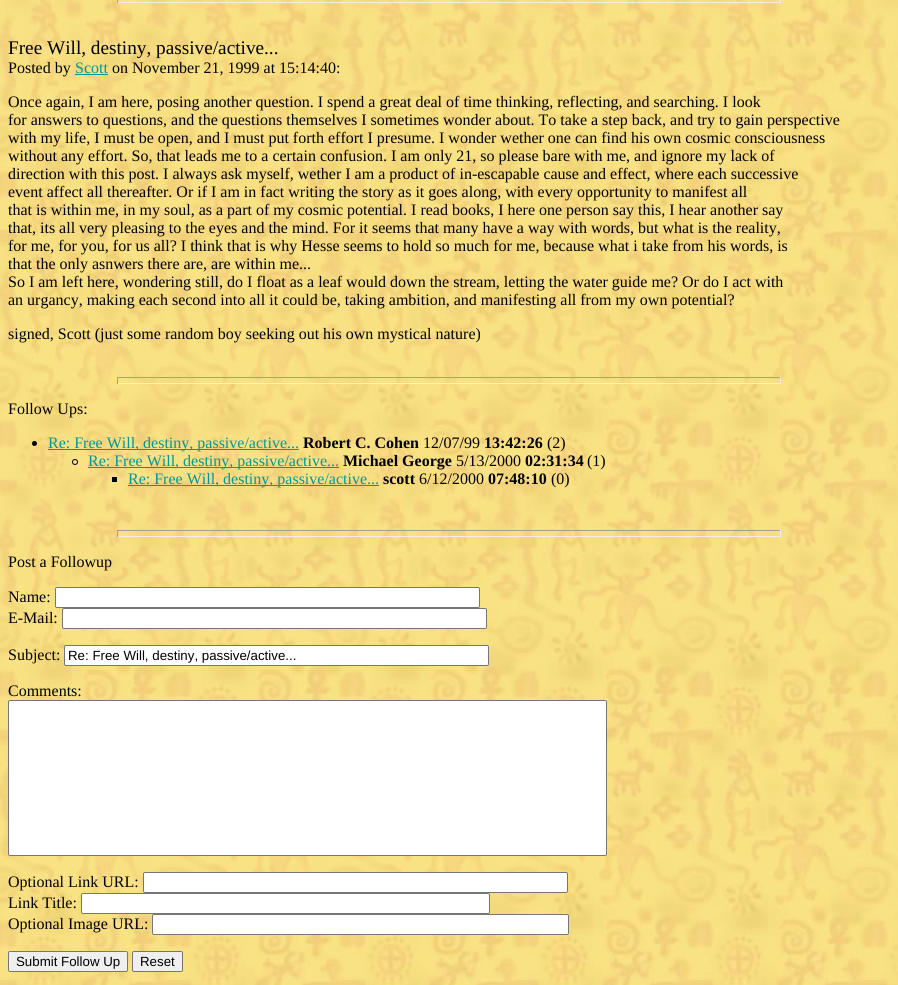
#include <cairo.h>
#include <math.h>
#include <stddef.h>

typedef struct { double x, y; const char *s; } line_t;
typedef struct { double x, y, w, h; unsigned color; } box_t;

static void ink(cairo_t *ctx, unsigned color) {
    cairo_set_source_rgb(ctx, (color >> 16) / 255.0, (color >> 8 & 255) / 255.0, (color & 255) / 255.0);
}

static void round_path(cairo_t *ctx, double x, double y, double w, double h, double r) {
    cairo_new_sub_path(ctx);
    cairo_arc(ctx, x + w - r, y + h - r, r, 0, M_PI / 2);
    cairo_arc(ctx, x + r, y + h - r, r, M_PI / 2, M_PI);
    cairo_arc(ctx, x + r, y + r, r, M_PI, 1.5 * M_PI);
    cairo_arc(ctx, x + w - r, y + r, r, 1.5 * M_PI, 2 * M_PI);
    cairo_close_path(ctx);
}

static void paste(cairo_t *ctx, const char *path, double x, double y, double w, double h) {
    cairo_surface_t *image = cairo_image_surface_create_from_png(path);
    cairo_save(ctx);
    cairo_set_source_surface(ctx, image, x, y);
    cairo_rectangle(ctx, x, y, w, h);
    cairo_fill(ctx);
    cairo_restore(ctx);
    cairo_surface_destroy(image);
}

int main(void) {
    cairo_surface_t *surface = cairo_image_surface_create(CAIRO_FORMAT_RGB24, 898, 985);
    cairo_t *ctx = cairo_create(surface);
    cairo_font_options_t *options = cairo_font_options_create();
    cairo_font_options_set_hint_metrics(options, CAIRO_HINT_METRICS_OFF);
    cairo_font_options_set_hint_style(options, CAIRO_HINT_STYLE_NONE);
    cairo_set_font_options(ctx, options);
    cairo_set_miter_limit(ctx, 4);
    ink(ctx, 0xFFFFFF);
    cairo_paint(ctx);
    paste(ctx, "media/1.png", 0, 0, 898, 985);
    {
        static const box_t items[] = {
            {780, 0, 1, 3, 0xEEEEEE},
            {117, 2, 664, 1, 0xEEEEEE},
            {117, 0, 1, 3, 0x9F9F9F},
        };
        for (size_t i = 0; i < sizeof items / sizeof *items; i++) {
            ink(ctx, items[i].color);
            cairo_rectangle(ctx, items[i].x, items[i].y, items[i].w, items[i].h);
            cairo_fill(ctx);
        }
    }
    cairo_select_font_face(ctx, "Liberation Serif", CAIRO_FONT_SLANT_NORMAL, CAIRO_FONT_WEIGHT_NORMAL);
    cairo_set_font_size(ctx, 19.25);
    ink(ctx, 0x000000);
    cairo_move_to(ctx, 8, 54);
    cairo_show_text(ctx, "Free Will, destiny, passive/active...");
    cairo_set_font_size(ctx, 16);
    cairo_move_to(ctx, 8, 73);
    cairo_show_text(ctx, "Posted by");
    ink(ctx, 0x009898);
    cairo_move_to(ctx, 75, 73);
    cairo_show_text(ctx, "Scott");
    cairo_rectangle(ctx, 75, 74, 33, 1);
    cairo_fill(ctx);
    ink(ctx, 0x000000);
    {
        static const line_t items[] = {
            {112, 73, "on November 21, 1999 at 15:14:40:"},
            {8, 107, "Once again, I am here, posing another question. I spend a great deal of time thinking, reflecting, and searching. I look"},
            {8, 125, "for answers to questions, and the questions themselves I sometimes wonder about. To take a step back, and try to gain perspective"},
            {8, 143, "with my life, I must be open, and I must put forth effort I presume. I wonder wether one can find his own cosmic consciousness"},
            {8, 161, "without any effort. So, that leads me to a certain confusion. I am only 21, so please bare with me, and ignore my lack of"},
            {8, 179, "direction with this post. I always ask myself, wether I am a product of in-escapable cause and effect, where each successive"},
            {8, 197, "event affect all thereafter. Or if I am in fact writing the story as it goes along, with every opportunity to manifest all"},
            {8, 215, "that is within me, in my soul, as a part of my cosmic potential. I read books, I here one person say this, I hear another say"},
            {8, 233, "that, its all very pleasing to the eyes and the mind. For it seems that many have a way with words, but what is the reality,"},
            {8, 251, "for me, for you, for us all? I think that is why Hesse seems to hold so much for me, because what i take from his words, is"},
            {8, 269, "that the only asnwers there are, are within me..."},
            {8, 287, "So I am left here, wondering still, do I float as a leaf would down the stream, letting the water guide me? Or do I act with"},
            {8, 305, "an urgancy, making each second into all it could be, taking ambition, and manifesting all from my own potential?"},
            {8, 339, "signed, Scott (just some random boy seeking out his own mystical nature)"},
        };
        for (size_t i = 0; i < sizeof items / sizeof *items; i++) {
            cairo_move_to(ctx, items[i].x, items[i].y);
            cairo_show_text(ctx, items[i].s);
        }
    }
    {
        static const box_t items[] = {
            {117, 377, 664, 1, 0x9F9F9F},
            {780, 377, 1, 7, 0xEEEEEE},
            {117, 383, 664, 1, 0xEEEEEE},
            {117, 377, 1, 7, 0x9F9F9F},
        };
        for (size_t i = 0; i < sizeof items / sizeof *items; i++) {
            ink(ctx, items[i].color);
            cairo_rectangle(ctx, items[i].x, items[i].y, items[i].w, items[i].h);
            cairo_fill(ctx);
        }
    }
    ink(ctx, 0x000000);
    cairo_move_to(ctx, 8, 414);
    cairo_show_text(ctx, "Follow Ups:");
    cairo_new_path(ctx);
    cairo_arc(ctx, 34.5, 443.5, 2.5, 0, 2 * M_PI);
    cairo_fill(ctx);
    ink(ctx, 0x009898);
    cairo_rectangle(ctx, 48, 449, 251, 1);
    cairo_fill(ctx);
    cairo_move_to(ctx, 48, 448);
    cairo_show_text(ctx, "Re: Free Will, destiny, passive/active...");
    cairo_select_font_face(ctx, "Liberation Serif", CAIRO_FONT_SLANT_NORMAL, CAIRO_FONT_WEIGHT_BOLD);
    ink(ctx, 0x000000);
    cairo_move_to(ctx, 303, 448);
    cairo_show_text(ctx, "Robert C. Cohen");
    cairo_select_font_face(ctx, "Liberation Serif", CAIRO_FONT_SLANT_NORMAL, CAIRO_FONT_WEIGHT_NORMAL);
    cairo_move_to(ctx, 423, 448);
    cairo_show_text(ctx, "12/07/99");
    cairo_select_font_face(ctx, "Liberation Serif", CAIRO_FONT_SLANT_NORMAL, CAIRO_FONT_WEIGHT_BOLD);
    cairo_move_to(ctx, 484, 448);
    cairo_show_text(ctx, "13:42:26");
    cairo_select_font_face(ctx, "Liberation Serif", CAIRO_FONT_SLANT_NORMAL, CAIRO_FONT_WEIGHT_NORMAL);
    cairo_move_to(ctx, 547, 448);
    cairo_show_text(ctx, "(2)");
    cairo_new_path(ctx);
    cairo_arc(ctx, 75, 462, 2.5, 0, 2 * M_PI);
    cairo_set_line_width(ctx, 1);
    cairo_stroke(ctx);
    ink(ctx, 0x009898);
    cairo_rectangle(ctx, 88, 467, 251, 1);
    cairo_fill(ctx);
    cairo_move_to(ctx, 88, 466);
    cairo_show_text(ctx, "Re: Free Will, destiny, passive/active...");
    cairo_select_font_face(ctx, "Liberation Serif", CAIRO_FONT_SLANT_NORMAL, CAIRO_FONT_WEIGHT_BOLD);
    ink(ctx, 0x000000);
    cairo_move_to(ctx, 343, 466);
    cairo_show_text(ctx, "Michael George");
    cairo_select_font_face(ctx, "Liberation Serif", CAIRO_FONT_SLANT_NORMAL, CAIRO_FONT_WEIGHT_NORMAL);
    cairo_move_to(ctx, 456, 466);
    cairo_show_text(ctx, "5/13/2000");
    cairo_select_font_face(ctx, "Liberation Serif", CAIRO_FONT_SLANT_NORMAL, CAIRO_FONT_WEIGHT_BOLD);
    cairo_move_to(ctx, 525, 466);
    cairo_show_text(ctx, "02:31:34");
    cairo_select_font_face(ctx, "Liberation Serif", CAIRO_FONT_SLANT_NORMAL, CAIRO_FONT_WEIGHT_NORMAL);
    cairo_move_to(ctx, 587, 466);
    cairo_show_text(ctx, "(1)");
    cairo_rectangle(ctx, 112, 477, 5, 5);
    cairo_fill(ctx);
    ink(ctx, 0x009898);
    cairo_rectangle(ctx, 128, 485, 251, 1);
    cairo_fill(ctx);
    cairo_move_to(ctx, 128, 484);
    cairo_show_text(ctx, "Re: Free Will, destiny, passive/active...");
    cairo_select_font_face(ctx, "Liberation Serif", CAIRO_FONT_SLANT_NORMAL, CAIRO_FONT_WEIGHT_BOLD);
    ink(ctx, 0x000000);
    cairo_move_to(ctx, 383, 484);
    cairo_show_text(ctx, "scott");
    cairo_select_font_face(ctx, "Liberation Serif", CAIRO_FONT_SLANT_NORMAL, CAIRO_FONT_WEIGHT_NORMAL);
    cairo_move_to(ctx, 419, 484);
    cairo_show_text(ctx, "6/12/2000");
    cairo_select_font_face(ctx, "Liberation Serif", CAIRO_FONT_SLANT_NORMAL, CAIRO_FONT_WEIGHT_BOLD);
    cairo_move_to(ctx, 488, 484);
    cairo_show_text(ctx, "07:48:10");
    cairo_select_font_face(ctx, "Liberation Serif", CAIRO_FONT_SLANT_NORMAL, CAIRO_FONT_WEIGHT_NORMAL);
    cairo_move_to(ctx, 551, 484);
    cairo_show_text(ctx, "(0)");
    {
        static const box_t items[] = {
            {117, 530, 664, 1, 0x9F9F9F},
            {780, 530, 1, 7, 0xEEEEEE},
            {117, 536, 664, 1, 0xEEEEEE},
            {117, 530, 1, 7, 0x9F9F9F},
        };
        for (size_t i = 0; i < sizeof items / sizeof *items; i++) {
            ink(ctx, items[i].color);
            cairo_rectangle(ctx, items[i].x, items[i].y, items[i].w, items[i].h);
            cairo_fill(ctx);
        }
    }
    ink(ctx, 0x000000);
    cairo_move_to(ctx, 8, 567);
    cairo_show_text(ctx, "Post a Followup");
    cairo_move_to(ctx, 8, 602);
    cairo_show_text(ctx, "Name:");
    ink(ctx, 0xFFFFFF);
    round_path(ctx, 55.5, 587.5, 424, 20, 1.5);
    cairo_fill_preserve(ctx);
    ink(ctx, 0x767676);
    cairo_stroke(ctx);
    ink(ctx, 0x000000);
    cairo_move_to(ctx, 8, 623);
    cairo_show_text(ctx, "E-Mail:");
    ink(ctx, 0xFFFFFF);
    round_path(ctx, 62.5, 608.5, 424, 20, 1.5);
    cairo_fill_preserve(ctx);
    ink(ctx, 0x767676);
    cairo_stroke(ctx);
    ink(ctx, 0x000000);
    cairo_move_to(ctx, 8, 660);
    cairo_show_text(ctx, "Subject:");
    ink(ctx, 0xFFFFFF);
    round_path(ctx, 64.5, 645.5, 424, 20, 1.5);
    cairo_fill_preserve(ctx);
    ink(ctx, 0x767676);
    cairo_stroke(ctx);
    cairo_select_font_face(ctx, "Liberation Sans", CAIRO_FONT_SLANT_NORMAL, CAIRO_FONT_WEIGHT_NORMAL);
    cairo_set_font_size(ctx, 13.3);
    ink(ctx, 0x000000);
    cairo_move_to(ctx, 68, 660);
    cairo_show_text(ctx, "Re: Free Will, destiny, passive/active...");
    cairo_select_font_face(ctx, "Liberation Serif", CAIRO_FONT_SLANT_NORMAL, CAIRO_FONT_WEIGHT_NORMAL);
    cairo_set_font_size(ctx, 16);
    cairo_move_to(ctx, 8, 696);
    cairo_show_text(ctx, "Comments:");
    ink(ctx, 0xFFFFFF);
    round_path(ctx, 8.5, 700.5, 598, 155, 1.5);
    cairo_fill_preserve(ctx);
    ink(ctx, 0x767676);
    cairo_stroke(ctx);
    ink(ctx, 0x000000);
    cairo_move_to(ctx, 8, 887);
    cairo_show_text(ctx, "Optional Link URL:");
    ink(ctx, 0xFFFFFF);
    round_path(ctx, 143.5, 872.5, 424, 20, 1.5);
    cairo_fill_preserve(ctx);
    ink(ctx, 0x767676);
    cairo_stroke(ctx);
    ink(ctx, 0x000000);
    cairo_move_to(ctx, 8, 908);
    cairo_show_text(ctx, "Link Title:");
    ink(ctx, 0xFFFFFF);
    round_path(ctx, 81.5, 893.5, 408, 20, 1.5);
    cairo_fill_preserve(ctx);
    ink(ctx, 0x767676);
    cairo_stroke(ctx);
    ink(ctx, 0x000000);
    cairo_move_to(ctx, 8, 929);
    cairo_show_text(ctx, "Optional Image URL:");
    ink(ctx, 0xFFFFFF);
    round_path(ctx, 152.5, 914.5, 416, 20, 1.5);
    cairo_fill_preserve(ctx);
    ink(ctx, 0x767676);
    cairo_stroke(ctx);
    ink(ctx, 0xEFEFEF);
    round_path(ctx, 8.5, 951.5, 119, 20, 1.5);
    cairo_fill_preserve(ctx);
    ink(ctx, 0x767676);
    cairo_stroke(ctx);
    cairo_select_font_face(ctx, "Liberation Sans", CAIRO_FONT_SLANT_NORMAL, CAIRO_FONT_WEIGHT_NORMAL);
    cairo_set_font_size(ctx, 13.3);
    ink(ctx, 0x000000);
    cairo_move_to(ctx, 16, 966);
    cairo_show_text(ctx, "Submit Follow Up");
    ink(ctx, 0xEFEFEF);
    round_path(ctx, 132.5, 951.5, 50, 20, 1.5);
    cairo_fill_preserve(ctx);
    ink(ctx, 0x767676);
    cairo_stroke(ctx);
    ink(ctx, 0x000000);
    cairo_move_to(ctx, 140, 966);
    cairo_show_text(ctx, "Reset");
    cairo_surface_write_to_png(surface, "image.png");
    cairo_font_options_destroy(options);
    cairo_destroy(ctx);
    cairo_surface_destroy(surface);
    return 0;
}
